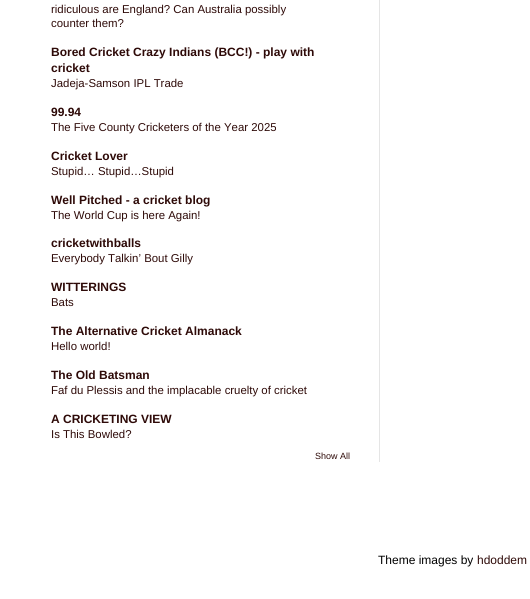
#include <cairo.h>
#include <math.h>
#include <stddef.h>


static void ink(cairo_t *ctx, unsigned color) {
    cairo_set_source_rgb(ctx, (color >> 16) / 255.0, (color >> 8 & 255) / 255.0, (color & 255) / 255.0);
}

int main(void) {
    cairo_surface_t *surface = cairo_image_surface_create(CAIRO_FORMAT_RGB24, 530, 599);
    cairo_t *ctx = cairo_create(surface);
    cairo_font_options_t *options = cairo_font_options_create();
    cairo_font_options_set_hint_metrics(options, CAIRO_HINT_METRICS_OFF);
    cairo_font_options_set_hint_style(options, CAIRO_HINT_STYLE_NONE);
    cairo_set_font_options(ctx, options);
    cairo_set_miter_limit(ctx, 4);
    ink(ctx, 0xFFFFFF);
    cairo_paint(ctx);
    cairo_select_font_face(ctx, "Liberation Sans", CAIRO_FONT_SLANT_NORMAL, CAIRO_FONT_WEIGHT_NORMAL);
    cairo_set_font_size(ctx, 11.4);
    ink(ctx, 0x2E0A08);
    cairo_move_to(ctx, 51, 13);
    cairo_show_text(ctx, "ridiculous are England? Can Australia possibly");
    cairo_move_to(ctx, 51, 27);
    cairo_show_text(ctx, "counter them?");
    cairo_select_font_face(ctx, "Liberation Sans", CAIRO_FONT_SLANT_NORMAL, CAIRO_FONT_WEIGHT_BOLD);
    cairo_set_font_size(ctx, 12);
    cairo_move_to(ctx, 51, 56);
    cairo_show_text(ctx, "Bored Cricket Crazy Indians (BCC!) - play with");
    cairo_move_to(ctx, 51, 72);
    cairo_show_text(ctx, "cricket");
    cairo_select_font_face(ctx, "Liberation Sans", CAIRO_FONT_SLANT_NORMAL, CAIRO_FONT_WEIGHT_NORMAL);
    cairo_set_font_size(ctx, 11.4);
    cairo_move_to(ctx, 51, 87);
    cairo_show_text(ctx, "Jadeja-Samson IPL Trade");
    cairo_select_font_face(ctx, "Liberation Sans", CAIRO_FONT_SLANT_NORMAL, CAIRO_FONT_WEIGHT_BOLD);
    cairo_set_font_size(ctx, 12);
    cairo_move_to(ctx, 51, 116);
    cairo_show_text(ctx, "99.94");
    cairo_select_font_face(ctx, "Liberation Sans", CAIRO_FONT_SLANT_NORMAL, CAIRO_FONT_WEIGHT_NORMAL);
    cairo_set_font_size(ctx, 11.4);
    cairo_move_to(ctx, 51, 131);
    cairo_show_text(ctx, "The Five County Cricketers of the Year 2025");
    cairo_select_font_face(ctx, "Liberation Sans", CAIRO_FONT_SLANT_NORMAL, CAIRO_FONT_WEIGHT_BOLD);
    cairo_set_font_size(ctx, 12);
    cairo_move_to(ctx, 51, 160);
    cairo_show_text(ctx, "Cricket Lover");
    cairo_select_font_face(ctx, "Liberation Sans", CAIRO_FONT_SLANT_NORMAL, CAIRO_FONT_WEIGHT_NORMAL);
    cairo_set_font_size(ctx, 11.4);
    cairo_move_to(ctx, 51, 175);
    cairo_show_text(ctx, "Stupid… Stupid…Stupid");
    cairo_select_font_face(ctx, "Liberation Sans", CAIRO_FONT_SLANT_NORMAL, CAIRO_FONT_WEIGHT_BOLD);
    cairo_set_font_size(ctx, 12);
    cairo_move_to(ctx, 51, 204);
    cairo_show_text(ctx, "Well Pitched - a cricket blog");
    cairo_select_font_face(ctx, "Liberation Sans", CAIRO_FONT_SLANT_NORMAL, CAIRO_FONT_WEIGHT_NORMAL);
    cairo_set_font_size(ctx, 11.4);
    cairo_move_to(ctx, 51, 219);
    cairo_show_text(ctx, "The World Cup is here Again!");
    cairo_select_font_face(ctx, "Liberation Sans", CAIRO_FONT_SLANT_NORMAL, CAIRO_FONT_WEIGHT_BOLD);
    cairo_set_font_size(ctx, 12);
    cairo_move_to(ctx, 51, 247);
    cairo_show_text(ctx, "cricketwithballs");
    cairo_select_font_face(ctx, "Liberation Sans", CAIRO_FONT_SLANT_NORMAL, CAIRO_FONT_WEIGHT_NORMAL);
    cairo_set_font_size(ctx, 11.4);
    cairo_move_to(ctx, 51, 262);
    cairo_show_text(ctx, "Everybody Talkin’ Bout Gilly");
    cairo_select_font_face(ctx, "Liberation Sans", CAIRO_FONT_SLANT_NORMAL, CAIRO_FONT_WEIGHT_BOLD);
    cairo_set_font_size(ctx, 12);
    cairo_move_to(ctx, 51, 291);
    cairo_show_text(ctx, "WITTERINGS");
    cairo_select_font_face(ctx, "Liberation Sans", CAIRO_FONT_SLANT_NORMAL, CAIRO_FONT_WEIGHT_NORMAL);
    cairo_set_font_size(ctx, 11.4);
    cairo_move_to(ctx, 51, 306);
    cairo_show_text(ctx, "Bats");
    cairo_select_font_face(ctx, "Liberation Sans", CAIRO_FONT_SLANT_NORMAL, CAIRO_FONT_WEIGHT_BOLD);
    cairo_set_font_size(ctx, 12);
    cairo_move_to(ctx, 51, 335);
    cairo_show_text(ctx, "The Alternative Cricket Almanack");
    cairo_select_font_face(ctx, "Liberation Sans", CAIRO_FONT_SLANT_NORMAL, CAIRO_FONT_WEIGHT_NORMAL);
    cairo_set_font_size(ctx, 11.4);
    cairo_move_to(ctx, 51, 350);
    cairo_show_text(ctx, "Hello world!");
    cairo_select_font_face(ctx, "Liberation Sans", CAIRO_FONT_SLANT_NORMAL, CAIRO_FONT_WEIGHT_BOLD);
    cairo_set_font_size(ctx, 12);
    cairo_move_to(ctx, 51, 379);
    cairo_show_text(ctx, "The Old Batsman");
    cairo_select_font_face(ctx, "Liberation Sans", CAIRO_FONT_SLANT_NORMAL, CAIRO_FONT_WEIGHT_NORMAL);
    cairo_set_font_size(ctx, 11.4);
    cairo_move_to(ctx, 51, 394);
    cairo_show_text(ctx, "Faf du Plessis and the implacable cruelty of cricket");
    cairo_select_font_face(ctx, "Liberation Sans", CAIRO_FONT_SLANT_NORMAL, CAIRO_FONT_WEIGHT_BOLD);
    cairo_set_font_size(ctx, 12);
    cairo_move_to(ctx, 51, 423);
    cairo_show_text(ctx, "A CRICKETING VIEW");
    cairo_select_font_face(ctx, "Liberation Sans", CAIRO_FONT_SLANT_NORMAL, CAIRO_FONT_WEIGHT_NORMAL);
    cairo_set_font_size(ctx, 11.4);
    cairo_move_to(ctx, 51, 438);
    cairo_show_text(ctx, "Is This Bowled?");
    cairo_set_font_size(ctx, 9);
    cairo_move_to(ctx, 315, 459);
    cairo_show_text(ctx, "Show All");
    ink(ctx, 0xE5E5E5);
    cairo_rectangle(ctx, 379, 0, 1, 462);
    cairo_fill(ctx);
    cairo_set_font_size(ctx, 12);
    ink(ctx, 0x000000);
    cairo_move_to(ctx, 378, 564);
    cairo_show_text(ctx, "Theme images by");
    ink(ctx, 0x2E0A08);
    cairo_move_to(ctx, 477, 564);
    cairo_show_text(ctx, "hdoddem");
    cairo_surface_write_to_png(surface, "image.png");
    cairo_font_options_destroy(options);
    cairo_destroy(ctx);
    cairo_surface_destroy(surface);
    return 0;
}
